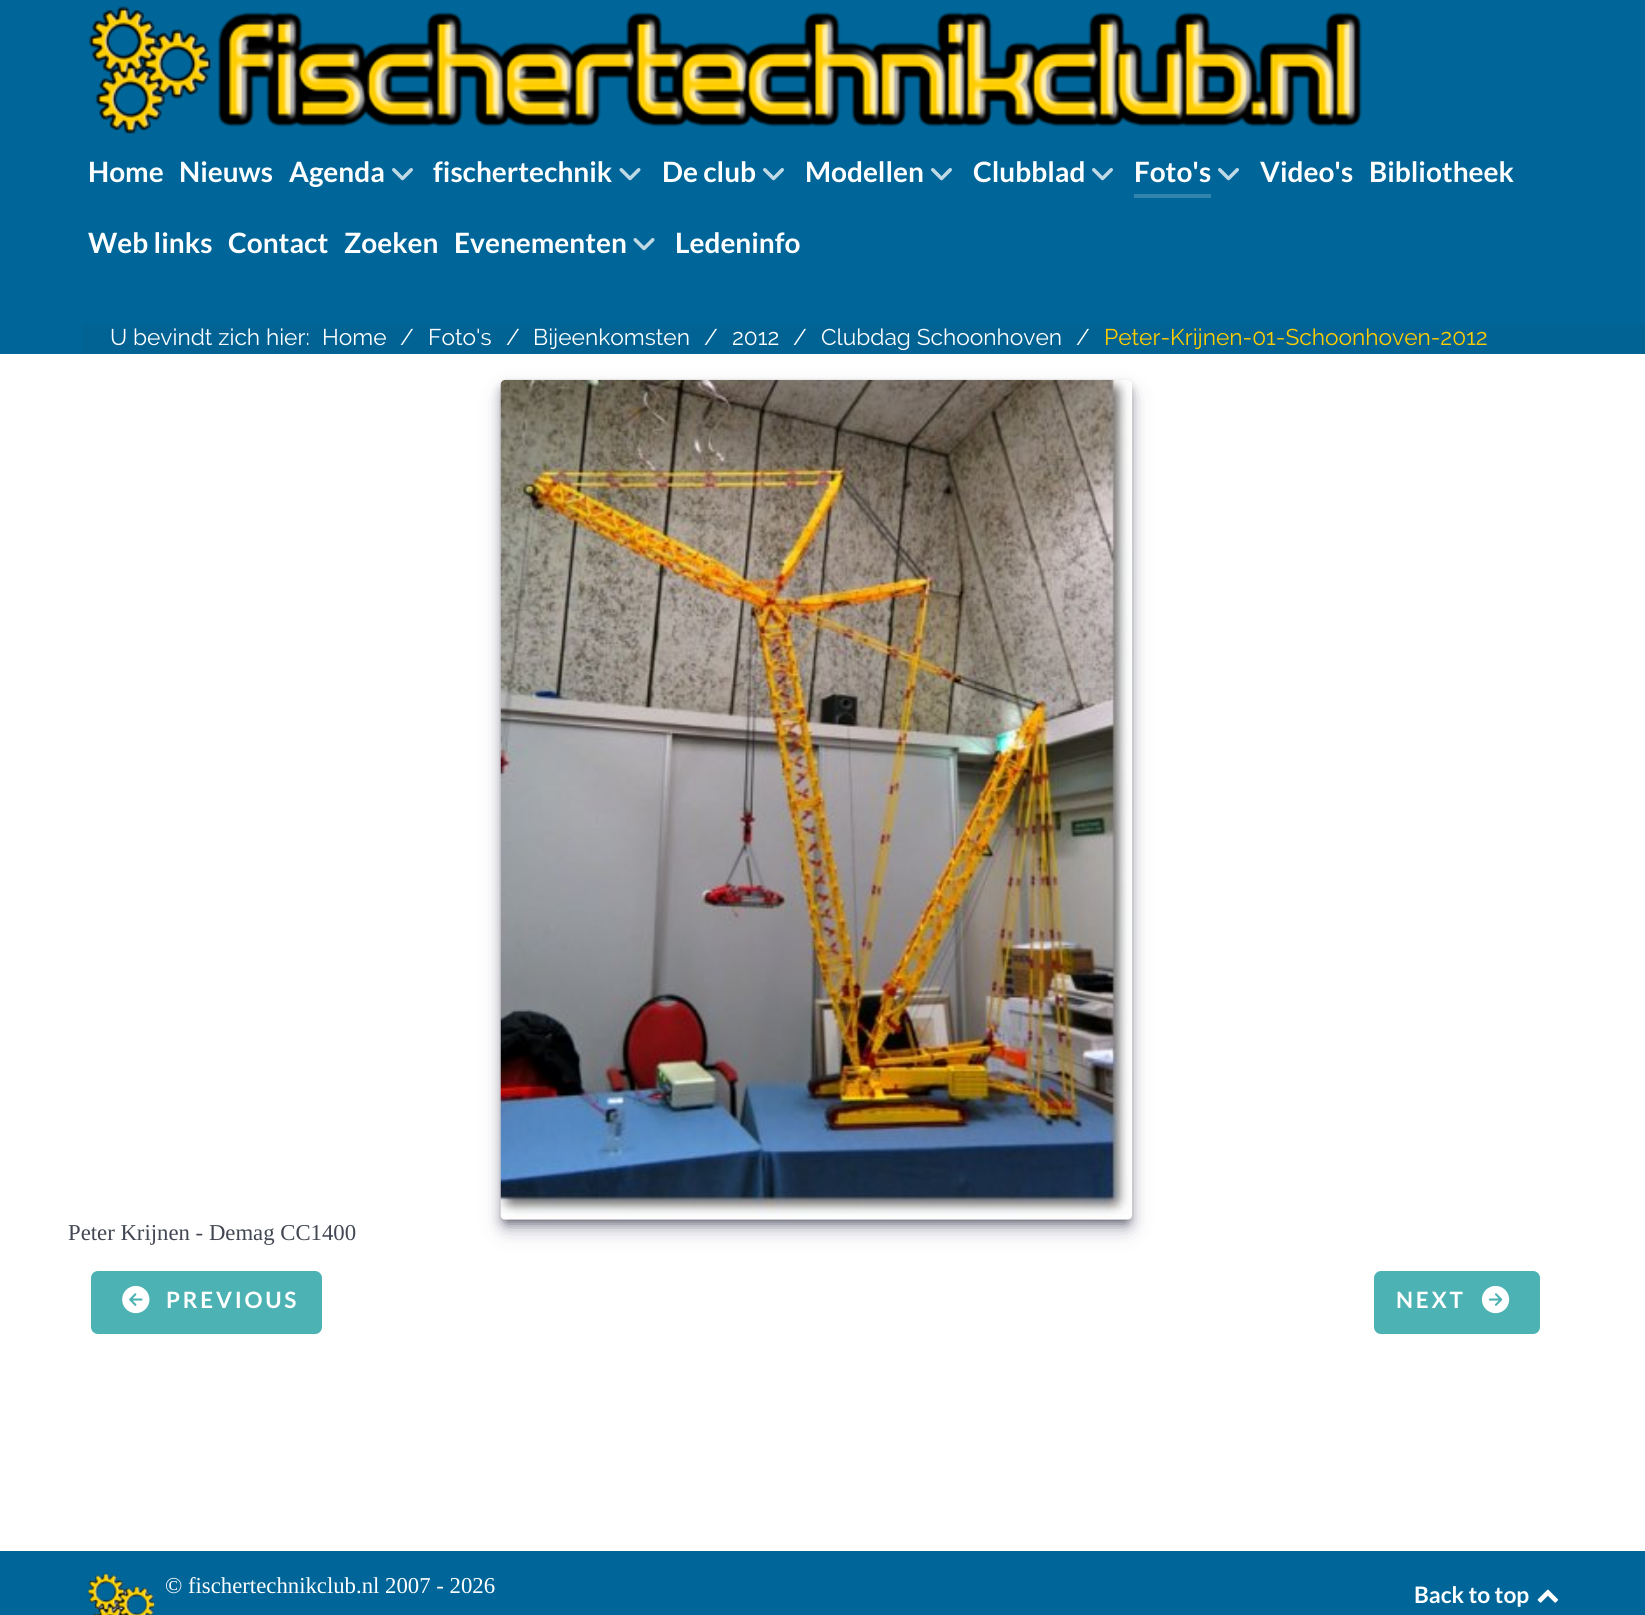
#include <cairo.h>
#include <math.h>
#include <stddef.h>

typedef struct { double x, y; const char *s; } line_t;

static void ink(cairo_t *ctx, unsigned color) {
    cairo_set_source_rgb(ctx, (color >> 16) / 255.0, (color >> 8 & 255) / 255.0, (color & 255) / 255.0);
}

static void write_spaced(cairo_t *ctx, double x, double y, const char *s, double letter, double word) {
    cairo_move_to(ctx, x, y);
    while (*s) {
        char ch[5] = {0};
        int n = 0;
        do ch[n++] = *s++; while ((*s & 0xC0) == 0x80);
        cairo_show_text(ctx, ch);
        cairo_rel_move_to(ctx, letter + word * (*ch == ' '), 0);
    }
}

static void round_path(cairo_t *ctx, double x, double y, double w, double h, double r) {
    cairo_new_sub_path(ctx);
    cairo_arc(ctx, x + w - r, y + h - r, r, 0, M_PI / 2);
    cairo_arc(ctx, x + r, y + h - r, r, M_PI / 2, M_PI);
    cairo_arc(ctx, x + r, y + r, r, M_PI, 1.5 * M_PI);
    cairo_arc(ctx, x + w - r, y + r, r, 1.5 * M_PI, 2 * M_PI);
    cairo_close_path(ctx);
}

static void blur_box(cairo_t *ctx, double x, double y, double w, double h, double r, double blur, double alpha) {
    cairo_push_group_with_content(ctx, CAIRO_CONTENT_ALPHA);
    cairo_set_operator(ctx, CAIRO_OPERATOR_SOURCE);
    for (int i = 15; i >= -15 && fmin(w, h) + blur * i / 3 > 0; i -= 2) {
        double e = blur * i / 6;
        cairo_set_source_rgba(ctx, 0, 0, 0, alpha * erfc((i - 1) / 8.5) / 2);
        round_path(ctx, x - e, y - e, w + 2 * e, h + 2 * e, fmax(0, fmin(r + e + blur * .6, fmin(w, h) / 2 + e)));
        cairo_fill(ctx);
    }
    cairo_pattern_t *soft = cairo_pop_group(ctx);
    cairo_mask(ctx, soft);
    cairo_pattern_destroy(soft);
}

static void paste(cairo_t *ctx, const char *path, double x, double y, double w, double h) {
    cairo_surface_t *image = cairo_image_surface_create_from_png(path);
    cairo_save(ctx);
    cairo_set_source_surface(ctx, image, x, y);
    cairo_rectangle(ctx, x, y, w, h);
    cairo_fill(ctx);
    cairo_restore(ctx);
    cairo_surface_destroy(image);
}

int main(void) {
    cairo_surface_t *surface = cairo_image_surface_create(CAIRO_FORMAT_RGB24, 1645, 1615);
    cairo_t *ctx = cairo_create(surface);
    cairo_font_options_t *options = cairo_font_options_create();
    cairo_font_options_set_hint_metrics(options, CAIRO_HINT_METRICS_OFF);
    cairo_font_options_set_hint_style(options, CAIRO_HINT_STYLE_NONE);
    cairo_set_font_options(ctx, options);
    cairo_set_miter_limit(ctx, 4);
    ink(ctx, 0xFFFFFF);
    cairo_paint(ctx);
    ink(ctx, 0x006699);
    cairo_rectangle(ctx, 0, 0, 1645, 354);
    cairo_fill(ctx);
    paste(ctx, "media/1.png", 88, 6, 1274, 128);
    cairo_select_font_face(ctx, "Lato", CAIRO_FONT_SLANT_NORMAL, CAIRO_FONT_WEIGHT_BOLD);
    cairo_set_font_size(ctx, 28);
    ink(ctx, 0xFFFFFF);
    {
        static const line_t items[] = {
            {88, 182, "Home"},
            {179, 182, "Nieuws"},
            {289, 182, "Agenda"},
        };
        for (size_t i = 0; i < sizeof items / sizeof *items; i++) {
            cairo_move_to(ctx, items[i].x, items[i].y);
            cairo_show_text(ctx, items[i].s);
        }
    }
    paste(ctx, "media/2.png", 392, 168, 21, 13);
    cairo_move_to(ctx, 433, 182);
    cairo_show_text(ctx, "fischertechnik");
    paste(ctx, "media/3.png", 619, 168, 22, 13);
    cairo_move_to(ctx, 662, 182);
    cairo_show_text(ctx, "De club");
    paste(ctx, "media/2.png", 763, 168, 21, 13);
    cairo_move_to(ctx, 805, 182);
    cairo_show_text(ctx, "Modellen");
    paste(ctx, "media/2.png", 931, 168, 21, 13);
    cairo_move_to(ctx, 973, 182);
    cairo_show_text(ctx, "Clubblad");
    paste(ctx, "media/2.png", 1092, 168, 21, 13);
    ink(ctx, 0x3385AD);
    cairo_rectangle(ctx, 1134, 194, 77, 4);
    cairo_fill(ctx);
    ink(ctx, 0xFFFFFF);
    cairo_move_to(ctx, 1134, 182);
    cairo_show_text(ctx, "Foto's");
    paste(ctx, "media/2.png", 1218, 168, 21, 13);
    {
        static const line_t items[] = {
            {1260, 182, "Video's"},
            {1369, 182, "Bibliotheek"},
            {88, 253, "Web links"},
            {228, 253, "Contact"},
            {344, 253, "Zoeken"},
            {454, 253, "Evenementen"},
        };
        for (size_t i = 0; i < sizeof items / sizeof *items; i++) {
            cairo_move_to(ctx, items[i].x, items[i].y);
            cairo_show_text(ctx, items[i].s);
        }
    }
    paste(ctx, "media/3.png", 633, 238, 22, 13);
    cairo_move_to(ctx, 675, 253);
    cairo_show_text(ctx, "Ledeninfo");
    ink(ctx, 0x006394);
    cairo_rectangle(ctx, 82, 324, 1563, 30);
    cairo_fill(ctx);
    cairo_select_font_face(ctx, "Raleway", CAIRO_FONT_SLANT_NORMAL, CAIRO_FONT_WEIGHT_NORMAL);
    cairo_set_font_size(ctx, 22.75);
    ink(ctx, 0xFFFFFF);
    {
        static const line_t items[] = {
            {110, 345, "U bevindt zich hier:"},
            {322, 345, "Home"},
            {400, 345, "/"},
            {428, 345, "Foto's"},
            {506, 345, "/"},
            {533, 345, "Bijeenkomsten"},
            {704, 345, "/"},
            {732, 345, "2012"},
            {793, 345, "/"},
            {821, 345, "Clubdag Schoonhoven"},
            {1076, 345, "/"},
        };
        for (size_t i = 0; i < sizeof items / sizeof *items; i++) {
            cairo_move_to(ctx, items[i].x, items[i].y);
            cairo_show_text(ctx, items[i].s);
        }
    }
    ink(ctx, 0xFFCC00);
    cairo_move_to(ctx, 1104, 345);
    cairo_show_text(ctx, "Peter-Krijnen-01-Schoonhoven-2012");
    cairo_select_font_face(ctx, "Liberation Serif", CAIRO_FONT_SLANT_NORMAL, CAIRO_FONT_WEIGHT_NORMAL);
    ink(ctx, 0x424753);
    cairo_move_to(ctx, 68, 1240);
    cairo_show_text(ctx, "Peter Krijnen - Demag CC1400");
    ink(ctx, 0x000000);
    blur_box(ctx, 506, 390, 621, 830, 0, 6, 0.7);
    ink(ctx, 0x32325D);
    blur_box(ctx, 504, 394, 625, 833, 2, 10.5, 0.4);
    paste(ctx, "media/4.png", 500, 379, 632, 841);
    ink(ctx, 0x4DB2B3);
    round_path(ctx, 91, 1271, 231, 63, 7);
    cairo_fill(ctx);
    paste(ctx, "media/5.png", 122, 1285, 28, 29);
    cairo_select_font_face(ctx, "Lato", CAIRO_FONT_SLANT_NORMAL, CAIRO_FONT_WEIGHT_BOLD);
    cairo_set_font_size(ctx, 22.5);
    ink(ctx, 0xFFFFFF);
    write_spaced(ctx, 166, 1308, "PREVIOUS", 2.75, 0);
    ink(ctx, 0x4DB2B3);
    round_path(ctx, 1374, 1271, 166, 63, 7);
    cairo_fill(ctx);
    ink(ctx, 0xFFFFFF);
    write_spaced(ctx, 1396, 1308, "NEXT", 2.75, 0);
    paste(ctx, "media/6.png", 1481, 1285, 29, 29);
    ink(ctx, 0x006699);
    cairo_rectangle(ctx, 0, 1551, 1645, 64);
    cairo_fill(ctx);
    paste(ctx, "media/7.png", 87, 1573, 68, 42);
    cairo_select_font_face(ctx, "Liberation Serif", CAIRO_FONT_SLANT_NORMAL, CAIRO_FONT_WEIGHT_NORMAL);
    cairo_set_font_size(ctx, 22.75);
    ink(ctx, 0xFFFFFF);
    cairo_move_to(ctx, 165, 1593);
    cairo_show_text(ctx, "© fischertechnikclub.nl 2007 - 2026");
    cairo_select_font_face(ctx, "Lato", CAIRO_FONT_SLANT_NORMAL, CAIRO_FONT_WEIGHT_BOLD);
    cairo_move_to(ctx, 1414, 1603);
    cairo_show_text(ctx, "Back to top");
    paste(ctx, "media/8.png", 1537, 1589, 22, 14);
    cairo_surface_write_to_png(surface, "image.png");
    cairo_font_options_destroy(options);
    cairo_destroy(ctx);
    cairo_surface_destroy(surface);
    return 0;
}
